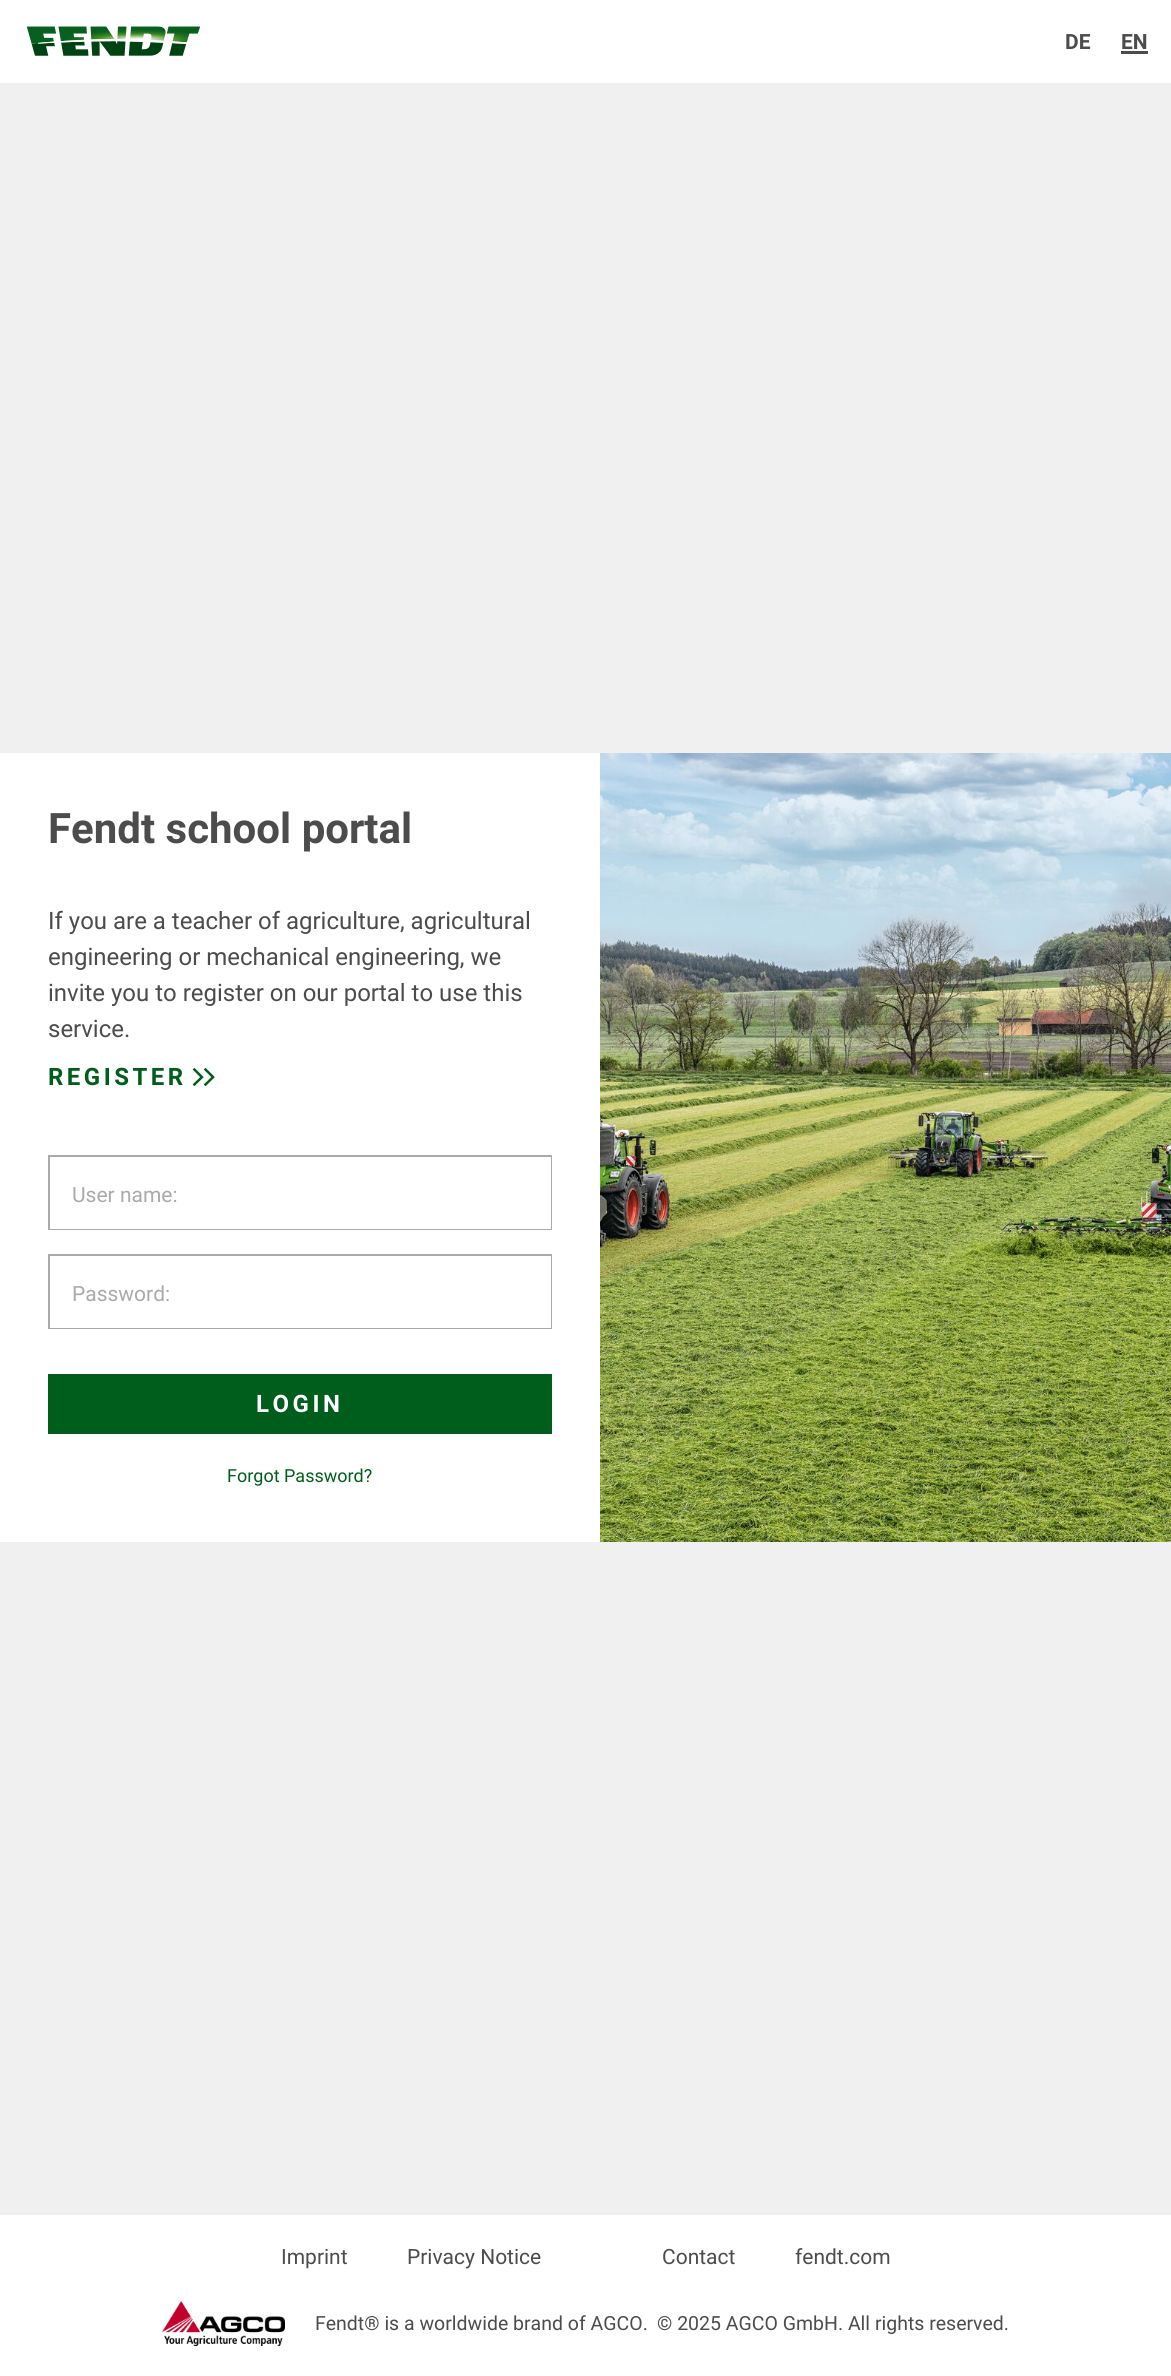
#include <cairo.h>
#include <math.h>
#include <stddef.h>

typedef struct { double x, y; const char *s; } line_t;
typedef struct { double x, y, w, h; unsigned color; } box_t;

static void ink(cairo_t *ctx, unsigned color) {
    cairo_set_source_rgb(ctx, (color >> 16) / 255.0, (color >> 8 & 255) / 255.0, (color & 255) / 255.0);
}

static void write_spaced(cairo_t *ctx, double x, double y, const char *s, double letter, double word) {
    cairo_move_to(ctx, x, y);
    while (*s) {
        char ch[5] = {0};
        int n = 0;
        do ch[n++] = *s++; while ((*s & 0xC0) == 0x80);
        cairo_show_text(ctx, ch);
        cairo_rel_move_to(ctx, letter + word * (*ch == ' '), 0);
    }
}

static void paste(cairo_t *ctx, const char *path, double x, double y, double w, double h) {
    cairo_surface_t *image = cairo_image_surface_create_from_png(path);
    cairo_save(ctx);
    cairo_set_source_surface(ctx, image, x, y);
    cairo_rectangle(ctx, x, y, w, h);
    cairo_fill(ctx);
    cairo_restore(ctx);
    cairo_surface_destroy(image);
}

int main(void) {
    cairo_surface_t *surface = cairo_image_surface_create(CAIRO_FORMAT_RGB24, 1171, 2376);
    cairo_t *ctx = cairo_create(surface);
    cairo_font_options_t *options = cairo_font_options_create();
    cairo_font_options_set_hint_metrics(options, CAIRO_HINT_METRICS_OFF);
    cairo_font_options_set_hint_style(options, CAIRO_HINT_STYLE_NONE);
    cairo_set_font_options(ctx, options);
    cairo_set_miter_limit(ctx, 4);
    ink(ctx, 0xFFFFFF);
    cairo_paint(ctx);
    ink(ctx, 0xEEEEEE);
    cairo_rectangle(ctx, 0, 83, 1171, 2);
    cairo_fill(ctx);
    paste(ctx, "media/1.png", 26, 26, 175, 30);
    cairo_select_font_face(ctx, "Roboto", CAIRO_FONT_SLANT_NORMAL, CAIRO_FONT_WEIGHT_BOLD);
    cairo_set_font_size(ctx, 21);
    ink(ctx, 0x4C4C4C);
    cairo_move_to(ctx, 1065, 49);
    cairo_show_text(ctx, "DE");
    cairo_move_to(ctx, 1121, 49);
    cairo_show_text(ctx, "EN");
    {
        static const box_t items[] = {
            {1121, 51, 27, 3, 0x4C4C4C},
            {0, 85, 1171, 2128, 0xF0F0F0},
            {0, 753, 600, 789, 0xFFFFFF},
        };
        for (size_t i = 0; i < sizeof items / sizeof *items; i++) {
            ink(ctx, items[i].color);
            cairo_rectangle(ctx, items[i].x, items[i].y, items[i].w, items[i].h);
            cairo_fill(ctx);
        }
    }
    cairo_set_font_size(ctx, 42);
    ink(ctx, 0x4C4C4C);
    cairo_move_to(ctx, 48, 843);
    cairo_show_text(ctx, "Fendt school portal");
    cairo_select_font_face(ctx, "Roboto", CAIRO_FONT_SLANT_NORMAL, CAIRO_FONT_WEIGHT_NORMAL);
    cairo_set_font_size(ctx, 24);
    {
        static const line_t items[] = {
            {48, 929, "If you are a teacher of agriculture, agricultural"},
            {48, 965, "engineering or mechanical engineering, we"},
            {48, 1001, "invite you to register on our portal to use this"},
            {48, 1037, "service."},
        };
        for (size_t i = 0; i < sizeof items / sizeof *items; i++) {
            cairo_move_to(ctx, items[i].x, items[i].y);
            cairo_show_text(ctx, items[i].s);
        }
    }
    cairo_select_font_face(ctx, "Roboto", CAIRO_FONT_SLANT_NORMAL, CAIRO_FONT_WEIGHT_BOLD);
    ink(ctx, 0x005E1D);
    write_spaced(ctx, 48, 1085, "REGISTER", 3.5, 0);
    paste(ctx, "media/2.png", 192, 1067, 23, 19);
    cairo_rectangle(ctx, 49, 1156, 502, 73);
    ink(ctx, 0xAAAAAA);
    cairo_stroke(ctx);
    ink(ctx, 0xFFFFFF);
    cairo_rectangle(ctx, 50, 1157, 501, 72);
    cairo_fill(ctx);
    cairo_select_font_face(ctx, "Roboto", CAIRO_FONT_SLANT_NORMAL, CAIRO_FONT_WEIGHT_NORMAL);
    cairo_set_font_size(ctx, 21);
    ink(ctx, 0xAAAAAA);
    cairo_move_to(ctx, 72, 1202);
    cairo_show_text(ctx, "User name:");
    cairo_rectangle(ctx, 49, 1255, 502, 73);
    cairo_stroke(ctx);
    ink(ctx, 0xFFFFFF);
    cairo_rectangle(ctx, 50, 1256, 501, 72);
    cairo_fill(ctx);
    ink(ctx, 0xAAAAAA);
    cairo_move_to(ctx, 72, 1301);
    cairo_show_text(ctx, "Password:");
    ink(ctx, 0x005E1D);
    cairo_rectangle(ctx, 48, 1374, 504, 60);
    cairo_fill(ctx);
    cairo_select_font_face(ctx, "Roboto", CAIRO_FONT_SLANT_NORMAL, CAIRO_FONT_WEIGHT_BOLD);
    cairo_set_font_size(ctx, 24);
    ink(ctx, 0xFFFFFF);
    write_spaced(ctx, 256, 1412, "LOGIN", 3.5, 0);
    cairo_select_font_face(ctx, "Roboto", CAIRO_FONT_SLANT_NORMAL, CAIRO_FONT_WEIGHT_NORMAL);
    cairo_set_font_size(ctx, 18);
    ink(ctx, 0x005E1D);
    cairo_move_to(ctx, 227, 1482);
    cairo_show_text(ctx, "Forgot Password?");
    paste(ctx, "media/3.png", 600, 753, 571, 789);
    ink(ctx, 0xEEEEEE);
    cairo_rectangle(ctx, 0, 2213, 1171, 2);
    cairo_fill(ctx);
    cairo_set_font_size(ctx, 21);
    ink(ctx, 0x4C4C4C);
    {
        static const line_t items[] = {
            {281, 2264, "Imprint"},
            {407, 2264, "Privacy Notice"},
            {662, 2264, "Contact"},
            {795, 2264, "fendt.com"},
        };
        for (size_t i = 0; i < sizeof items / sizeof *items; i++) {
            cairo_move_to(ctx, items[i].x, items[i].y);
            cairo_show_text(ctx, items[i].s);
        }
    }
    paste(ctx, "media/4.png", 162, 2301, 123, 45);
    cairo_set_font_size(ctx, 19.5);
    cairo_move_to(ctx, 315, 2330);
    cairo_show_text(ctx, "Fendt® is a worldwide brand of AGCO.");
    cairo_move_to(ctx, 657, 2330);
    cairo_show_text(ctx, "© 2025 AGCO GmbH. All rights reserved.");
    cairo_surface_write_to_png(surface, "image.png");
    cairo_font_options_destroy(options);
    cairo_destroy(ctx);
    cairo_surface_destroy(surface);
    return 0;
}
